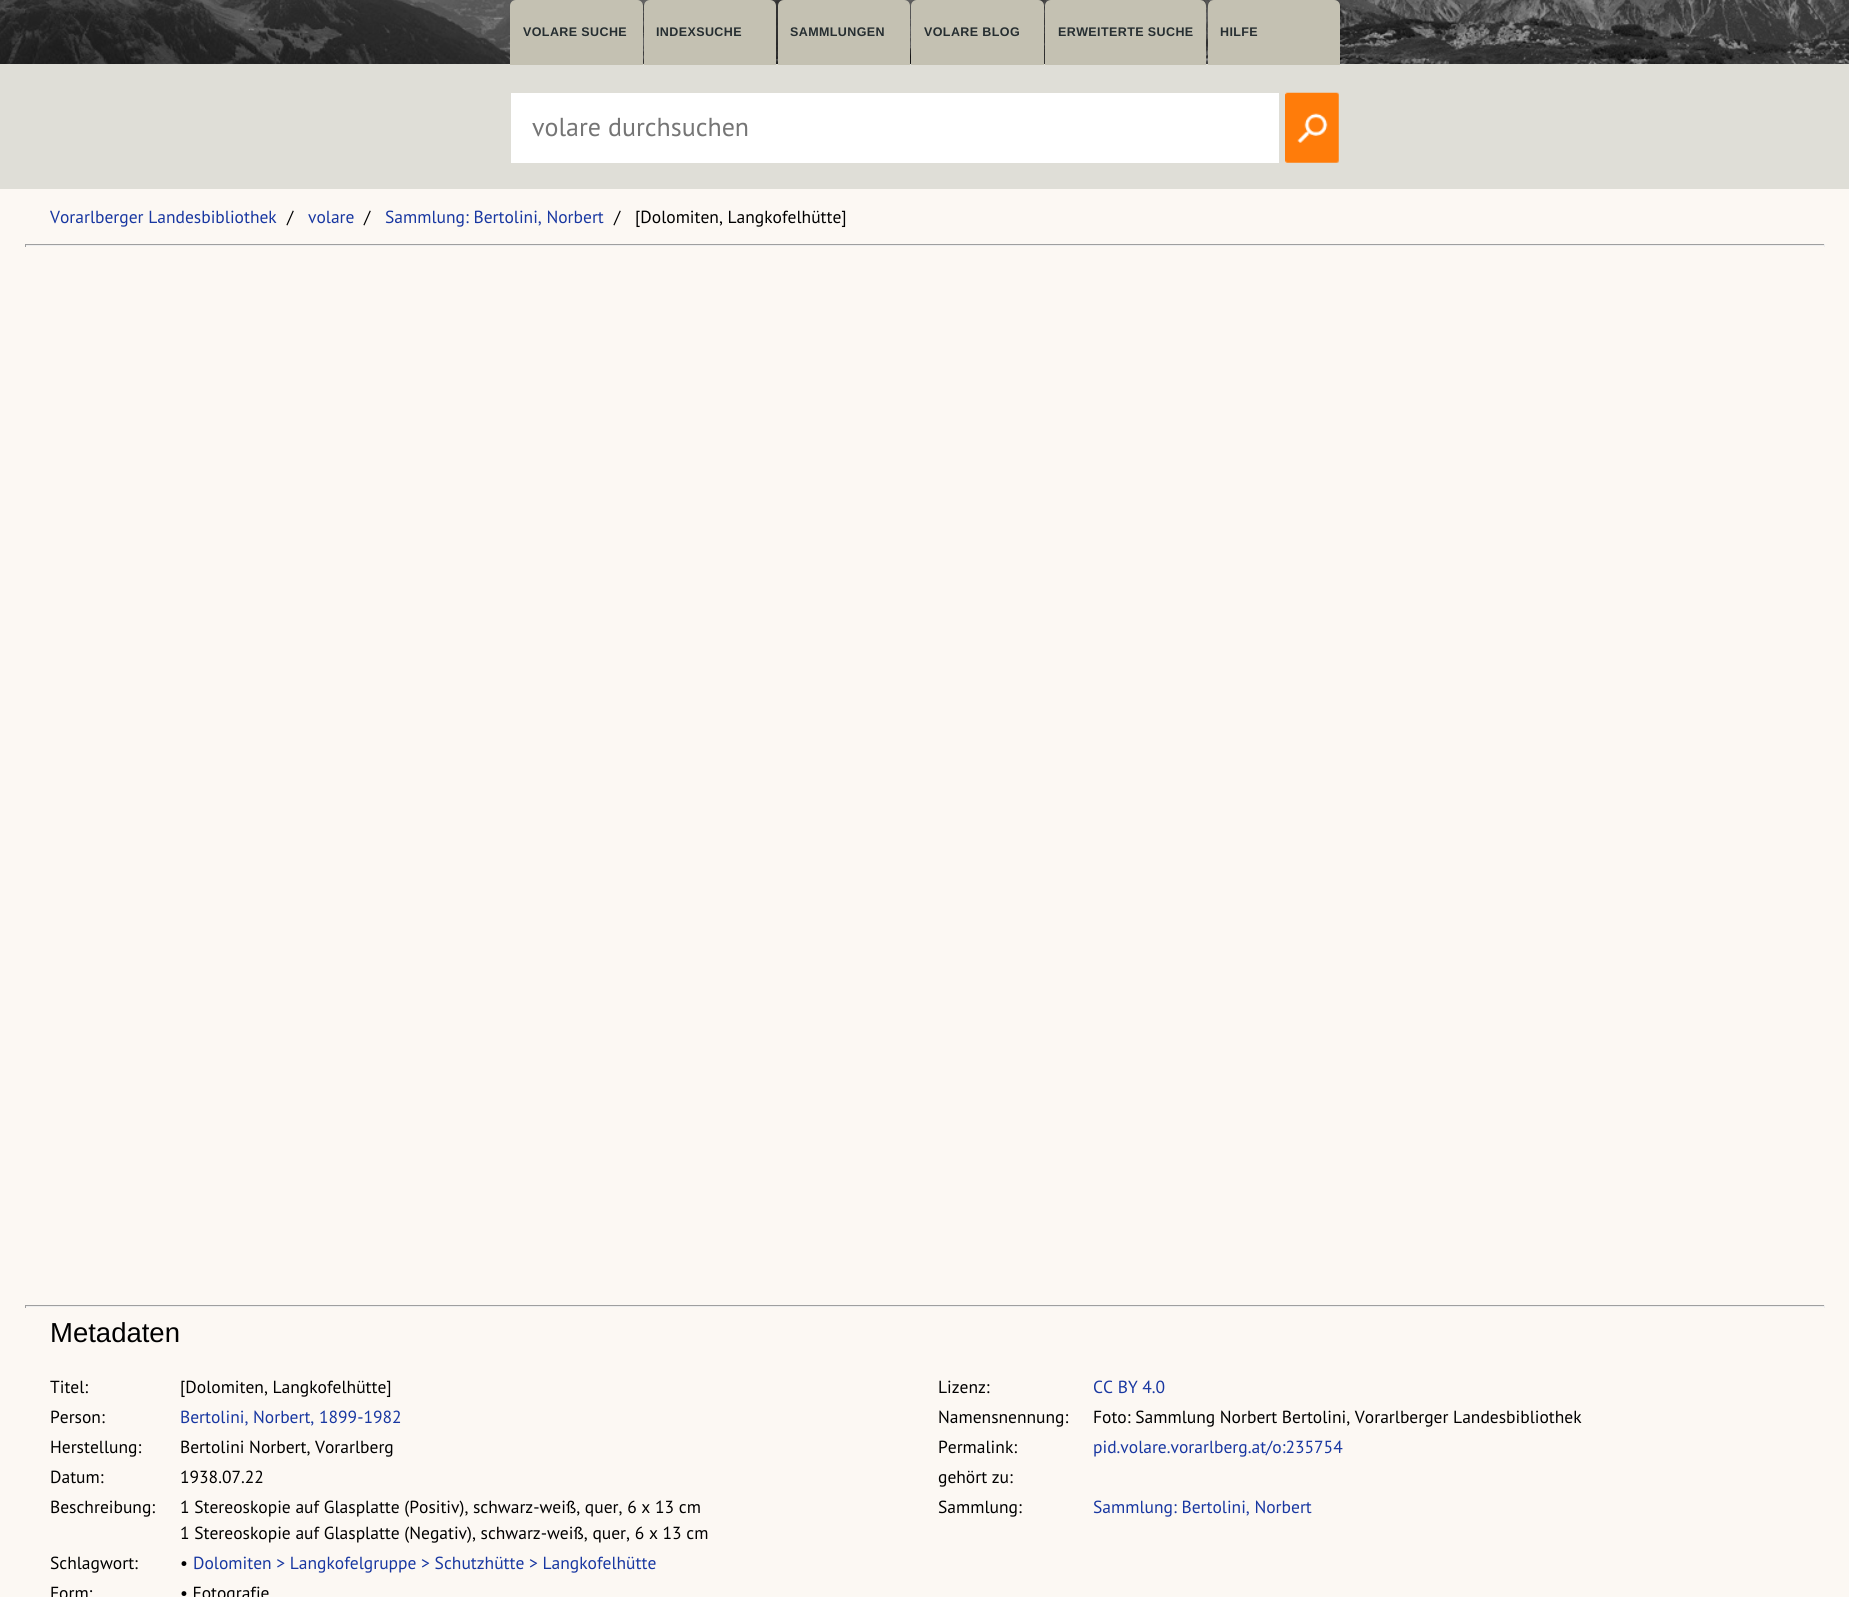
#include <cairo.h>
#include <math.h>
#include <stddef.h>

typedef struct { double x, y; const char *s; } line_t;
typedef struct { double x, y, w, h; unsigned color; } box_t;

static void ink(cairo_t *ctx, unsigned color) {
    cairo_set_source_rgb(ctx, (color >> 16) / 255.0, (color >> 8 & 255) / 255.0, (color & 255) / 255.0);
}

static void write_spaced(cairo_t *ctx, double x, double y, const char *s, double letter, double word) {
    cairo_move_to(ctx, x, y);
    while (*s) {
        char ch[5] = {0};
        int n = 0;
        do ch[n++] = *s++; while ((*s & 0xC0) == 0x80);
        cairo_show_text(ctx, ch);
        cairo_rel_move_to(ctx, letter + word * (*ch == ' '), 0);
    }
}

static void paste(cairo_t *ctx, const char *path, double x, double y, double w, double h) {
    cairo_surface_t *image = cairo_image_surface_create_from_png(path);
    cairo_save(ctx);
    cairo_set_source_surface(ctx, image, x, y);
    cairo_rectangle(ctx, x, y, w, h);
    cairo_fill(ctx);
    cairo_restore(ctx);
    cairo_surface_destroy(image);
}

int main(void) {
    cairo_surface_t *surface = cairo_image_surface_create(CAIRO_FORMAT_RGB24, 1849, 1597);
    cairo_t *ctx = cairo_create(surface);
    cairo_font_options_t *options = cairo_font_options_create();
    cairo_font_options_set_hint_metrics(options, CAIRO_HINT_METRICS_OFF);
    cairo_font_options_set_hint_style(options, CAIRO_HINT_STYLE_NONE);
    cairo_set_font_options(ctx, options);
    cairo_set_miter_limit(ctx, 4);
    ink(ctx, 0xFCF8F3);
    cairo_paint(ctx);
    paste(ctx, "media/1.png", 0, 0, 1849, 64);
    ink(ctx, 0xDFDED7);
    cairo_rectangle(ctx, 0, 64, 1849, 125);
    cairo_fill(ctx);
    ink(ctx, 0xC4C1B2);
    cairo_new_path(ctx);
    cairo_move_to(ctx, 516, 0);
    cairo_line_to(ctx, 637, 0);
    cairo_curve_to(ctx, 640.5, 0, 643, 2.5, 643, 6);
    cairo_line_to(ctx, 643, 65);
    cairo_line_to(ctx, 510, 65);
    cairo_line_to(ctx, 510, 6);
    cairo_curve_to(ctx, 510, 2.5, 512.5, 0, 516, 0);
    cairo_close_path(ctx);
    cairo_fill(ctx);
    cairo_select_font_face(ctx, "Liberation Sans", CAIRO_FONT_SLANT_NORMAL, CAIRO_FONT_WEIGHT_BOLD);
    cairo_set_font_size(ctx, 12.5);
    ink(ctx, 0x262E31);
    write_spaced(ctx, 523, 36, "VOLARE SUCHE", 0.4, 0);
    ink(ctx, 0xC4C1B2);
    cairo_new_path(ctx);
    cairo_move_to(ctx, 650, 0);
    cairo_line_to(ctx, 770, 0);
    cairo_curve_to(ctx, 773.5, 0, 776, 2.5, 776, 6);
    cairo_line_to(ctx, 776, 65);
    cairo_line_to(ctx, 644, 65);
    cairo_line_to(ctx, 644, 6);
    cairo_curve_to(ctx, 644, 2.5, 646.5, 0, 650, 0);
    cairo_close_path(ctx);
    cairo_fill(ctx);
    ink(ctx, 0x262E31);
    write_spaced(ctx, 656, 36, "INDEXSUCHE", 0.4, 0);
    ink(ctx, 0xC4C1B2);
    cairo_new_path(ctx);
    cairo_move_to(ctx, 784, 0);
    cairo_line_to(ctx, 904, 0);
    cairo_curve_to(ctx, 907.5, 0, 910, 2.5, 910, 6);
    cairo_line_to(ctx, 910, 65);
    cairo_line_to(ctx, 778, 65);
    cairo_line_to(ctx, 778, 6);
    cairo_curve_to(ctx, 778, 2.5, 780.5, 0, 784, 0);
    cairo_close_path(ctx);
    cairo_fill(ctx);
    ink(ctx, 0x262E31);
    write_spaced(ctx, 790, 36, "SAMMLUNGEN", 0.4, 0);
    ink(ctx, 0xC4C1B2);
    cairo_new_path(ctx);
    cairo_move_to(ctx, 917, 0);
    cairo_line_to(ctx, 1038, 0);
    cairo_curve_to(ctx, 1041.5, 0, 1044, 2.5, 1044, 6);
    cairo_line_to(ctx, 1044, 65);
    cairo_line_to(ctx, 911, 65);
    cairo_line_to(ctx, 911, 6);
    cairo_curve_to(ctx, 911, 2.5, 913.5, 0, 917, 0);
    cairo_close_path(ctx);
    cairo_fill(ctx);
    ink(ctx, 0x262E31);
    write_spaced(ctx, 924, 36, "VOLARE BLOG", 0.4, 0);
    ink(ctx, 0xC4C1B2);
    cairo_new_path(ctx);
    cairo_move_to(ctx, 1051, 0);
    cairo_line_to(ctx, 1200, 0);
    cairo_curve_to(ctx, 1203.5, 0, 1206, 2.5, 1206, 6);
    cairo_line_to(ctx, 1206, 65);
    cairo_line_to(ctx, 1045, 65);
    cairo_line_to(ctx, 1045, 6);
    cairo_curve_to(ctx, 1045, 2.5, 1047.5, 0, 1051, 0);
    cairo_close_path(ctx);
    cairo_fill(ctx);
    ink(ctx, 0x262E31);
    write_spaced(ctx, 1058, 36, "ERWEITERTE SUCHE", 0.4, 0);
    ink(ctx, 0xC4C1B2);
    cairo_new_path(ctx);
    cairo_move_to(ctx, 1214, 0);
    cairo_line_to(ctx, 1334, 0);
    cairo_curve_to(ctx, 1337.5, 0, 1340, 2.5, 1340, 6);
    cairo_line_to(ctx, 1340, 65);
    cairo_line_to(ctx, 1208, 65);
    cairo_line_to(ctx, 1208, 6);
    cairo_curve_to(ctx, 1208, 2.5, 1210.5, 0, 1214, 0);
    cairo_close_path(ctx);
    cairo_fill(ctx);
    ink(ctx, 0x262E31);
    write_spaced(ctx, 1220, 36, "HILFE", 0.4, 0);
    ink(ctx, 0xFFFFFF);
    cairo_rectangle(ctx, 511, 93, 768, 70);
    cairo_fill(ctx);
    cairo_select_font_face(ctx, "PT Sans", CAIRO_FONT_SLANT_NORMAL, CAIRO_FONT_WEIGHT_NORMAL);
    cairo_set_font_size(ctx, 26);
    ink(ctx, 0x757575);
    cairo_move_to(ctx, 532, 136);
    cairo_show_text(ctx, "volare durchsuchen");
    paste(ctx, "media/2.png", 1285, 92, 54, 71);
    cairo_set_font_size(ctx, 17.5);
    ink(ctx, 0x1837A1);
    cairo_move_to(ctx, 50, 223);
    cairo_show_text(ctx, "Vorarlberger Landesbibliothek");
    ink(ctx, 0x000000);
    cairo_move_to(ctx, 287, 223);
    cairo_show_text(ctx, "/");
    ink(ctx, 0x1837A1);
    cairo_move_to(ctx, 308, 223);
    cairo_show_text(ctx, "volare");
    ink(ctx, 0x000000);
    cairo_move_to(ctx, 364, 223);
    cairo_show_text(ctx, "/");
    ink(ctx, 0x1837A1);
    cairo_move_to(ctx, 385, 223);
    cairo_show_text(ctx, "Sammlung: Bertolini, Norbert");
    ink(ctx, 0x000000);
    cairo_move_to(ctx, 614, 223);
    cairo_show_text(ctx, "/");
    cairo_move_to(ctx, 635, 223);
    cairo_show_text(ctx, "[Dolomiten, Langkofelhütte]");
    {
        static const box_t items[] = {
            {25, 244, 1800, 1, 0x9F9F9F},
            {1824, 244, 1, 3, 0xEEEEEE},
            {25, 245, 1800, 1, 0xEEEEEE},
            {25, 244, 1, 3, 0x9F9F9F},
            {25, 1305, 1800, 1, 0x9F9F9F},
            {1824, 1305, 1, 3, 0xEEEEEE},
            {25, 1306, 1800, 1, 0xEEEEEE},
            {25, 1305, 1, 3, 0x9F9F9F},
        };
        for (size_t i = 0; i < sizeof items / sizeof *items; i++) {
            ink(ctx, items[i].color);
            cairo_rectangle(ctx, items[i].x, items[i].y, items[i].w, items[i].h);
            cairo_fill(ctx);
        }
    }
    cairo_select_font_face(ctx, "Liberation Sans", CAIRO_FONT_SLANT_NORMAL, CAIRO_FONT_WEIGHT_NORMAL);
    cairo_set_font_size(ctx, 27.5);
    ink(ctx, 0x000000);
    cairo_move_to(ctx, 50, 1342);
    cairo_show_text(ctx, "Metadaten");
    cairo_select_font_face(ctx, "PT Sans", CAIRO_FONT_SLANT_NORMAL, CAIRO_FONT_WEIGHT_NORMAL);
    cairo_set_font_size(ctx, 17.5);
    {
        static const line_t items[] = {
            {50, 1393, "Titel:"},
            {180, 1393, "[Dolomiten, Langkofelhütte]"},
            {50, 1423, "Person:"},
        };
        for (size_t i = 0; i < sizeof items / sizeof *items; i++) {
            cairo_move_to(ctx, items[i].x, items[i].y);
            cairo_show_text(ctx, items[i].s);
        }
    }
    ink(ctx, 0x1837A1);
    cairo_move_to(ctx, 180, 1423);
    cairo_show_text(ctx, "Bertolini, Norbert, 1899-1982");
    ink(ctx, 0x000000);
    {
        static const line_t items[] = {
            {50, 1453, "Herstellung:"},
            {180, 1453, "Bertolini Norbert, Vorarlberg"},
            {50, 1483, "Datum:"},
            {180, 1483, "1938.07.22"},
            {50, 1513, "Beschreibung:"},
            {180, 1513, "1 Stereoskopie auf Glasplatte (Positiv), schwarz-weiß, quer, 6 x 13 cm"},
            {180, 1539, "1 Stereoskopie auf Glasplatte (Negativ), schwarz-weiß, quer, 6 x 13 cm"},
            {50, 1569, "Schlagwort:"},
            {180, 1569, "•"},
        };
        for (size_t i = 0; i < sizeof items / sizeof *items; i++) {
            cairo_move_to(ctx, items[i].x, items[i].y);
            cairo_show_text(ctx, items[i].s);
        }
    }
    ink(ctx, 0x1837A1);
    cairo_move_to(ctx, 193, 1569);
    cairo_show_text(ctx, "Dolomiten > Langkofelgruppe > Schutzhütte > Langkofelhütte");
    ink(ctx, 0x000000);
    {
        static const line_t items[] = {
            {50, 1599, "Form:"},
            {180, 1599, "• Fotografie"},
            {938, 1393, "Lizenz:"},
        };
        for (size_t i = 0; i < sizeof items / sizeof *items; i++) {
            cairo_move_to(ctx, items[i].x, items[i].y);
            cairo_show_text(ctx, items[i].s);
        }
    }
    ink(ctx, 0x1837A1);
    cairo_move_to(ctx, 1093, 1393);
    cairo_show_text(ctx, "CC BY 4.0");
    ink(ctx, 0x000000);
    {
        static const line_t items[] = {
            {938, 1423, "Namensnennung:"},
            {1093, 1423, "Foto: Sammlung Norbert Bertolini, Vorarlberger Landesbibliothek"},
            {938, 1453, "Permalink:"},
        };
        for (size_t i = 0; i < sizeof items / sizeof *items; i++) {
            cairo_move_to(ctx, items[i].x, items[i].y);
            cairo_show_text(ctx, items[i].s);
        }
    }
    ink(ctx, 0x1837A1);
    cairo_move_to(ctx, 1093, 1453);
    cairo_show_text(ctx, "pid.volare.vorarlberg.at/o:235754");
    ink(ctx, 0x000000);
    cairo_move_to(ctx, 938, 1483);
    cairo_show_text(ctx, "gehört zu:");
    cairo_move_to(ctx, 938, 1513);
    cairo_show_text(ctx, "Sammlung:");
    ink(ctx, 0x1837A1);
    cairo_move_to(ctx, 1093, 1513);
    cairo_show_text(ctx, "Sammlung: Bertolini, Norbert");
    cairo_surface_write_to_png(surface, "image.png");
    cairo_font_options_destroy(options);
    cairo_destroy(ctx);
    cairo_surface_destroy(surface);
    return 0;
}
